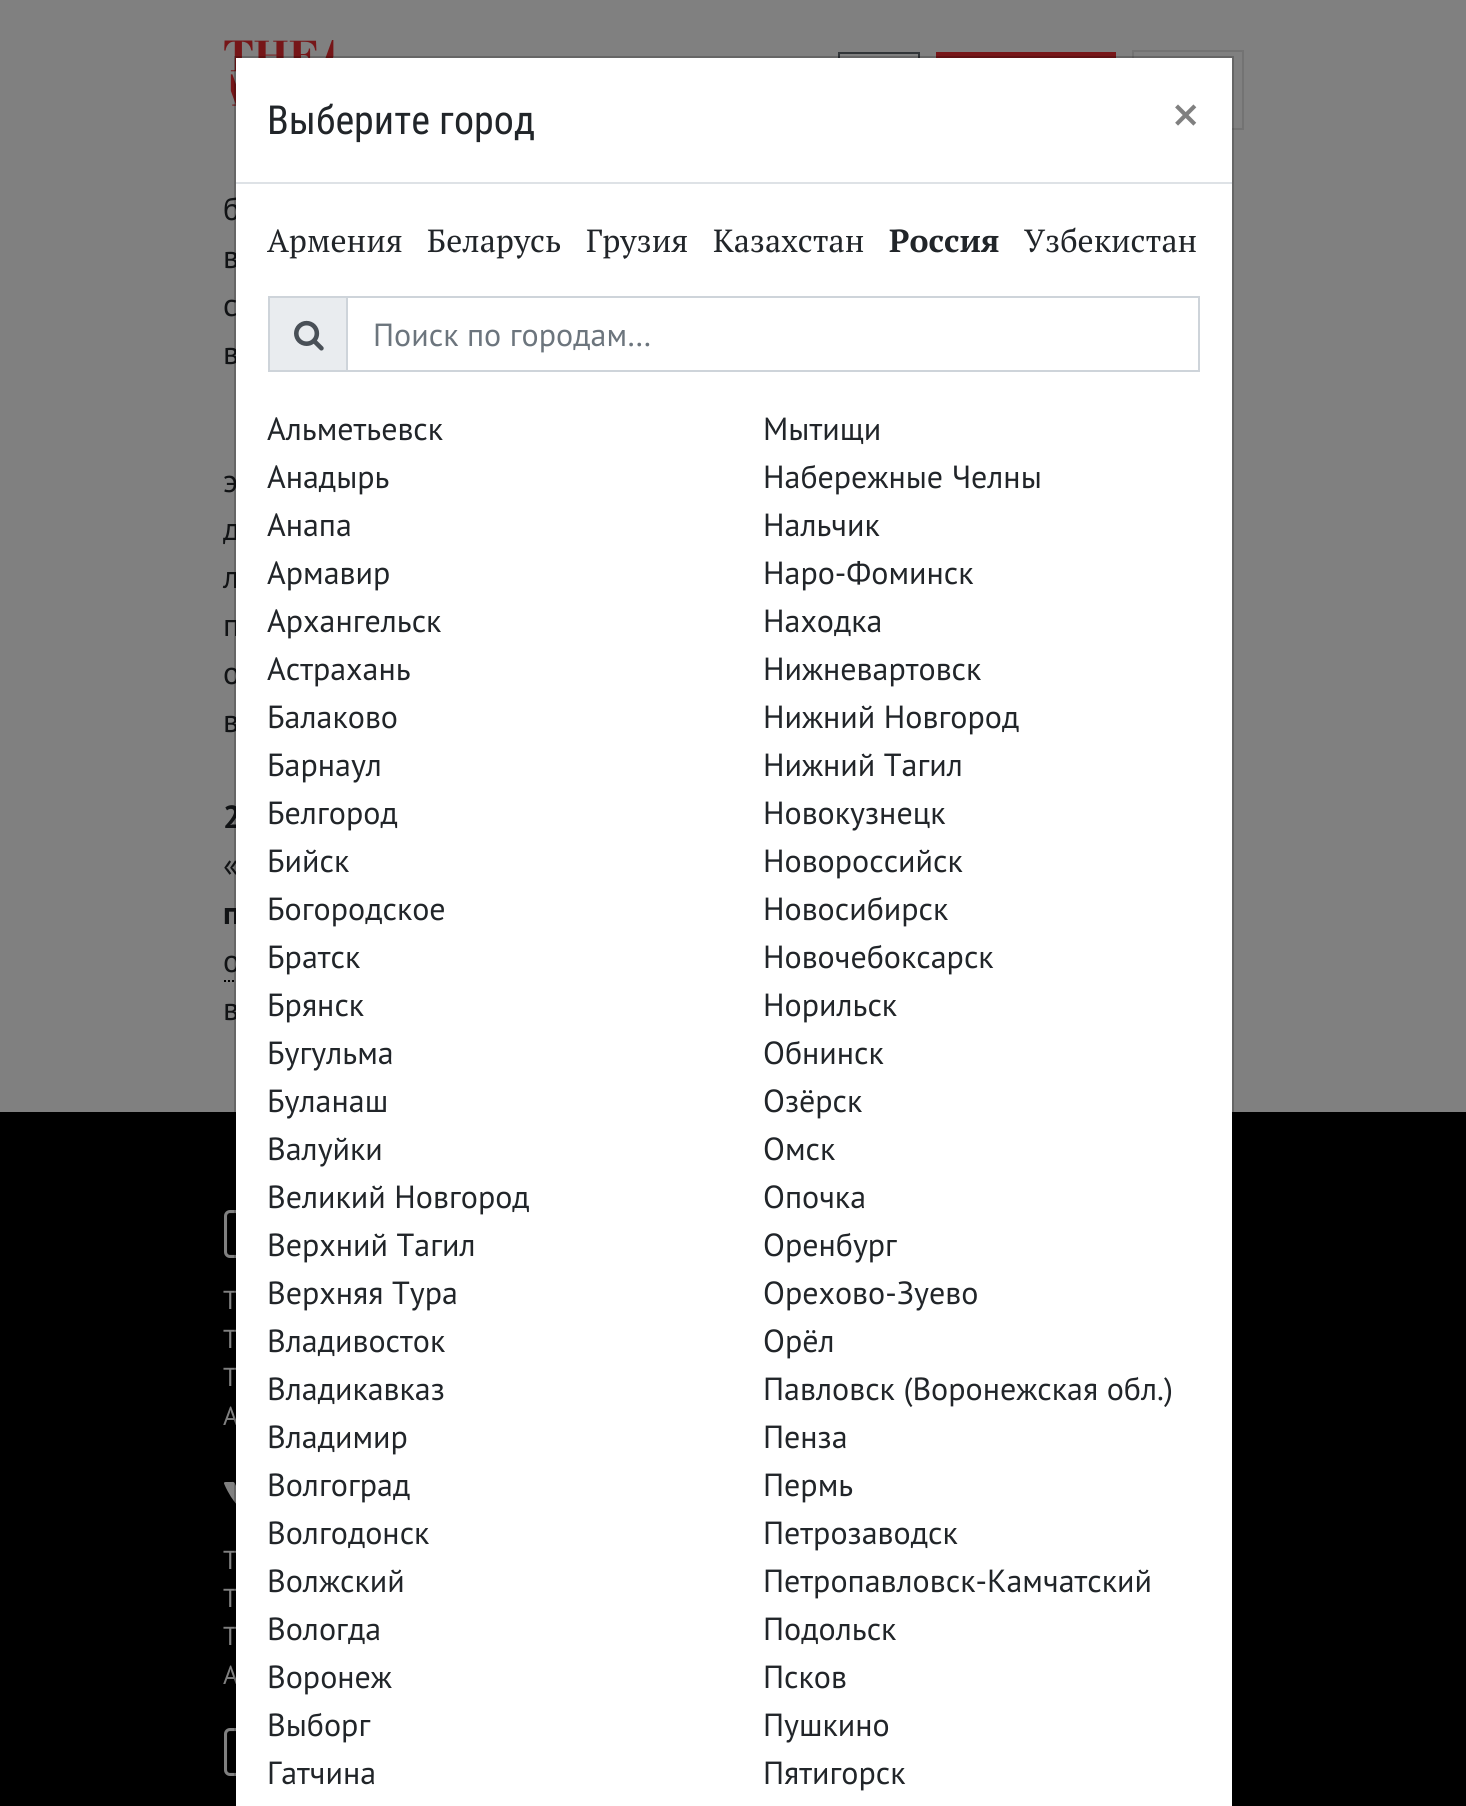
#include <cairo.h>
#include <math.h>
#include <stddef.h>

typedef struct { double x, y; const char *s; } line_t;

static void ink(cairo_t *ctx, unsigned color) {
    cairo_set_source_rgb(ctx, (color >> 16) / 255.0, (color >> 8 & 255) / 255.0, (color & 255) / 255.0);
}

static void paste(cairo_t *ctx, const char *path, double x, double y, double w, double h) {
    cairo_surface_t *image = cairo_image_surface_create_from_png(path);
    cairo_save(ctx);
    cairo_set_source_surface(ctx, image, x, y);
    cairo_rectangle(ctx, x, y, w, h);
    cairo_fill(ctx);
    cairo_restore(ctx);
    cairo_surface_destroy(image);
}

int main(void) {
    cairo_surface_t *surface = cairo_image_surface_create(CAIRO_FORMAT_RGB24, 1466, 1806);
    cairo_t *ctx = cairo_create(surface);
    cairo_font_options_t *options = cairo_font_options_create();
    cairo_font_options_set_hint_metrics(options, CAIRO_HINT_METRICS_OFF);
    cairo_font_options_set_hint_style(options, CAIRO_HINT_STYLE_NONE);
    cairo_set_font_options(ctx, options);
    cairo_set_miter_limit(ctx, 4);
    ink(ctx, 0x808080);
    cairo_paint(ctx);
    paste(ctx, "media/1.png", 224, 40, 110, 66);
    cairo_rectangle(ctx, 839, 53, 80, 74);
    ink(ctx, 0x323639);
    cairo_stroke(ctx);
    ink(ctx, 0x771719);
    cairo_rectangle(ctx, 936, 52, 180, 6);
    cairo_fill(ctx);
    cairo_rectangle(ctx, 1133, 51, 110, 78);
    ink(ctx, 0x737373);
    cairo_stroke(ctx);
    cairo_select_font_face(ctx, "PT Sans", CAIRO_FONT_SLANT_NORMAL, CAIRO_FONT_WEIGHT_NORMAL);
    cairo_set_font_size(ctx, 32);
    ink(ctx, 0x111315);
    {
        static const line_t items[] = {
            {223, 220, "б"},
            {223, 268, "в"},
            {223, 316, "с"},
            {223, 364, "в"},
            {223, 492, "э"},
            {223, 540, "д"},
            {223, 588, "л"},
            {223, 636, "п"},
            {223, 684, "о"},
            {223, 732, "в"},
        };
        for (size_t i = 0; i < sizeof items / sizeof *items; i++) {
            cairo_move_to(ctx, items[i].x, items[i].y);
            cairo_show_text(ctx, items[i].s);
        }
    }
    cairo_select_font_face(ctx, "PT Sans", CAIRO_FONT_SLANT_NORMAL, CAIRO_FONT_WEIGHT_BOLD);
    cairo_move_to(ctx, 223, 828);
    cairo_show_text(ctx, "2");
    cairo_select_font_face(ctx, "PT Sans", CAIRO_FONT_SLANT_NORMAL, CAIRO_FONT_WEIGHT_NORMAL);
    cairo_move_to(ctx, 223, 876);
    cairo_show_text(ctx, "«");
    cairo_select_font_face(ctx, "PT Sans", CAIRO_FONT_SLANT_NORMAL, CAIRO_FONT_WEIGHT_BOLD);
    cairo_move_to(ctx, 223, 924);
    cairo_show_text(ctx, "п");
    cairo_select_font_face(ctx, "PT Sans", CAIRO_FONT_SLANT_NORMAL, CAIRO_FONT_WEIGHT_NORMAL);
    cairo_move_to(ctx, 223, 972);
    cairo_show_text(ctx, "о");
    cairo_new_path(ctx);
    cairo_move_to(ctx, 224, 981);
    cairo_line_to(ctx, 320, 981);
    ink(ctx, 0x000000);
    cairo_set_dash(ctx, (double[]){2, 2}, 2, 0);
    cairo_stroke(ctx);
    ink(ctx, 0x111315);
    cairo_move_to(ctx, 223, 1020);
    cairo_show_text(ctx, "в");
    ink(ctx, 0x000000);
    cairo_rectangle(ctx, 0, 1112, 1466, 694);
    cairo_fill(ctx);
    cairo_set_font_size(ctx, 26);
    ink(ctx, 0x808080);
    {
        static const line_t items[] = {
            {223, 1309, "T"},
            {223, 1348, "T"},
            {223, 1386, "T"},
            {223, 1425, "А"},
            {223, 1569, "T"},
            {223, 1607, "T"},
            {223, 1645, "T"},
            {223, 1684, "А"},
        };
        for (size_t i = 0; i < sizeof items / sizeof *items; i++) {
            cairo_move_to(ctx, items[i].x, items[i].y);
            cairo_show_text(ctx, items[i].s);
        }
    }
    ink(ctx, 0xFFFFFF);
    cairo_rectangle(ctx, 236, 58, 996, 1748);
    cairo_fill(ctx);
    paste(ctx, "media/3.png", 224, 1210, 12, 48);
    paste(ctx, "media/4.png", 224, 1481, 12, 23);
    paste(ctx, "media/3.png", 224, 1728, 12, 48);
    cairo_rectangle(ctx, 235, 57, 998, 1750);
    cairo_set_source_rgba(ctx, 0, 0, 0, 0.2);
    cairo_set_dash(ctx, NULL, 0, 0);
    cairo_stroke(ctx);
    ink(ctx, 0xDEE2E6);
    cairo_rectangle(ctx, 236, 182, 996, 2);
    cairo_fill(ctx);
    cairo_select_font_face(ctx, "Roboto Condensed", CAIRO_FONT_SLANT_NORMAL, CAIRO_FONT_WEIGHT_NORMAL);
    cairo_set_font_size(ctx, 40);
    ink(ctx, 0x212529);
    cairo_move_to(ctx, 267, 134);
    cairo_show_text(ctx, "Выберите город");
    cairo_select_font_face(ctx, "Open Sans SemiBold", CAIRO_FONT_SLANT_NORMAL, CAIRO_FONT_WEIGHT_NORMAL);
    cairo_set_font_size(ctx, 48);
    ink(ctx, 0x808080);
    cairo_move_to(ctx, 1172, 132);
    cairo_show_text(ctx, "×");
    cairo_select_font_face(ctx, "PT Serif", CAIRO_FONT_SLANT_NORMAL, CAIRO_FONT_WEIGHT_NORMAL);
    cairo_set_font_size(ctx, 32);
    ink(ctx, 0x212529);
    {
        static const line_t items[] = {
            {267, 252, "Армения"},
            {427, 252, "Беларусь"},
            {586, 252, "Грузия"},
            {713, 252, "Казахстан"},
        };
        for (size_t i = 0; i < sizeof items / sizeof *items; i++) {
            cairo_move_to(ctx, items[i].x, items[i].y);
            cairo_show_text(ctx, items[i].s);
        }
    }
    cairo_select_font_face(ctx, "PT Serif", CAIRO_FONT_SLANT_NORMAL, CAIRO_FONT_WEIGHT_BOLD);
    cairo_move_to(ctx, 889, 252);
    cairo_show_text(ctx, "Россия");
    cairo_select_font_face(ctx, "PT Serif", CAIRO_FONT_SLANT_NORMAL, CAIRO_FONT_WEIGHT_NORMAL);
    cairo_move_to(ctx, 1024, 252);
    cairo_show_text(ctx, "Узбекистан");
    ink(ctx, 0xE9ECEF);
    cairo_rectangle(ctx, 269, 297, 78, 74);
    cairo_fill_preserve(ctx);
    ink(ctx, 0xCED4DA);
    cairo_stroke(ctx);
    paste(ctx, "media/2.png", 294, 320, 30, 31);
    cairo_rectangle(ctx, 347, 297, 852, 74);
    cairo_stroke(ctx);
    cairo_select_font_face(ctx, "PT Sans", CAIRO_FONT_SLANT_NORMAL, CAIRO_FONT_WEIGHT_NORMAL);
    ink(ctx, 0x6C757D);
    cairo_move_to(ctx, 373, 346);
    cairo_show_text(ctx, "Поиск по городам…");
    ink(ctx, 0x212529);
    {
        static const line_t items[] = {
            {267, 440, "Альметьевск"},
            {763, 440, "Мытищи"},
            {267, 488, "Анадырь"},
            {763, 488, "Набережные Челны"},
            {267, 536, "Анапа"},
            {763, 536, "Нальчик"},
            {267, 584, "Армавир"},
            {763, 584, "Наро-Фоминск"},
            {267, 632, "Архангельск"},
            {763, 632, "Находка"},
            {267, 680, "Астрахань"},
            {763, 680, "Нижневартовск"},
            {267, 728, "Балаково"},
            {763, 728, "Нижний Новгород"},
            {267, 776, "Барнаул"},
            {763, 776, "Нижний Тагил"},
            {267, 824, "Белгород"},
            {763, 824, "Новокузнецк"},
            {267, 872, "Бийск"},
            {763, 872, "Новороссийск"},
            {267, 920, "Богородское"},
            {763, 920, "Новосибирск"},
            {267, 968, "Братск"},
            {763, 968, "Новочебоксарск"},
            {267, 1016, "Брянск"},
            {763, 1016, "Норильск"},
            {267, 1064, "Бугульма"},
            {763, 1064, "Обнинск"},
            {267, 1112, "Буланаш"},
            {763, 1112, "Озёрск"},
            {267, 1160, "Валуйки"},
            {763, 1160, "Омск"},
            {267, 1208, "Великий Новгород"},
            {763, 1208, "Опочка"},
            {267, 1256, "Верхний Тагил"},
            {763, 1256, "Оренбург"},
            {267, 1304, "Верхняя Тура"},
            {763, 1304, "Орехово-Зуево"},
            {267, 1352, "Владивосток"},
            {763, 1352, "Орёл"},
            {267, 1400, "Владикавказ"},
            {763, 1400, "Павловск (Воронежская обл.)"},
            {267, 1448, "Владимир"},
            {763, 1448, "Пенза"},
            {267, 1496, "Волгоград"},
            {763, 1496, "Пермь"},
            {267, 1544, "Волгодонск"},
            {763, 1544, "Петрозаводск"},
            {267, 1592, "Волжский"},
            {763, 1592, "Петропавловск-Камчатский"},
            {267, 1640, "Вологда"},
            {763, 1640, "Подольск"},
            {267, 1688, "Воронеж"},
            {763, 1688, "Псков"},
            {267, 1736, "Выборг"},
            {763, 1736, "Пушкино"},
            {267, 1784, "Гатчина"},
            {763, 1784, "Пятигорск"},
        };
        for (size_t i = 0; i < sizeof items / sizeof *items; i++) {
            cairo_move_to(ctx, items[i].x, items[i].y);
            cairo_show_text(ctx, items[i].s);
        }
    }
    cairo_surface_write_to_png(surface, "image.png");
    cairo_font_options_destroy(options);
    cairo_destroy(ctx);
    cairo_surface_destroy(surface);
    return 0;
}
